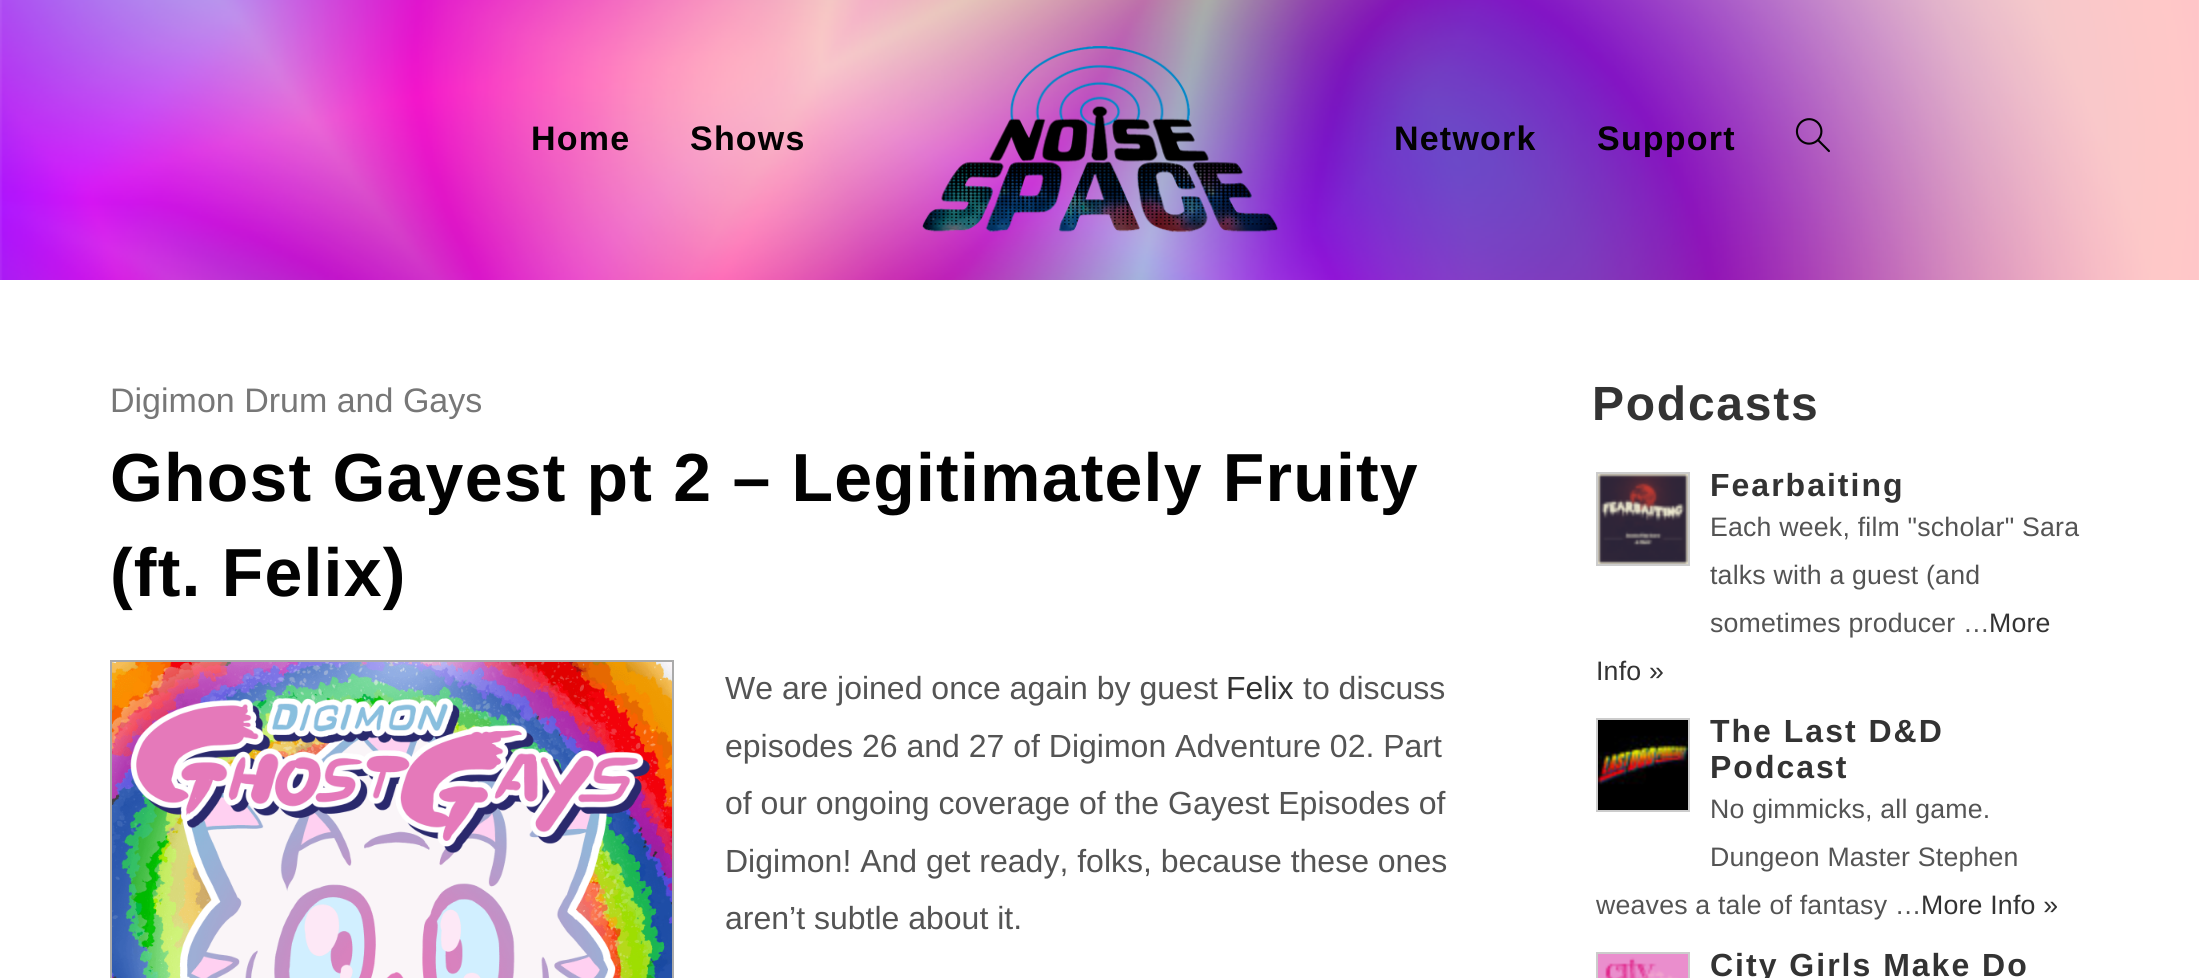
#include <cairo.h>
#include <math.h>
#include <stddef.h>

typedef struct { double x, y; const char *s; } line_t;

static void ink(cairo_t *ctx, unsigned color) {
    cairo_set_source_rgb(ctx, (color >> 16) / 255.0, (color >> 8 & 255) / 255.0, (color & 255) / 255.0);
}

static void write_spaced(cairo_t *ctx, double x, double y, const char *s, double letter, double word) {
    cairo_move_to(ctx, x, y);
    while (*s) {
        char ch[5] = {0};
        int n = 0;
        do ch[n++] = *s++; while ((*s & 0xC0) == 0x80);
        cairo_show_text(ctx, ch);
        cairo_rel_move_to(ctx, letter + word * (*ch == ' '), 0);
    }
}

static void paste(cairo_t *ctx, const char *path, double x, double y, double w, double h) {
    cairo_surface_t *image = cairo_image_surface_create_from_png(path);
    cairo_save(ctx);
    cairo_set_source_surface(ctx, image, x, y);
    cairo_rectangle(ctx, x, y, w, h);
    cairo_fill(ctx);
    cairo_restore(ctx);
    cairo_surface_destroy(image);
}

int main(void) {
    cairo_surface_t *surface = cairo_image_surface_create(CAIRO_FORMAT_RGB24, 2199, 978);
    cairo_t *ctx = cairo_create(surface);
    cairo_font_options_t *options = cairo_font_options_create();
    cairo_font_options_set_hint_metrics(options, CAIRO_HINT_METRICS_OFF);
    cairo_font_options_set_hint_style(options, CAIRO_HINT_STYLE_NONE);
    cairo_set_font_options(ctx, options);
    cairo_set_miter_limit(ctx, 4);
    ink(ctx, 0xFFFFFF);
    cairo_paint(ctx);
    paste(ctx, "media/1.png", 0, 0, 2199, 280);
    cairo_select_font_face(ctx, "Liberation Sans", CAIRO_FONT_SLANT_NORMAL, CAIRO_FONT_WEIGHT_BOLD);
    cairo_set_font_size(ctx, 34);
    ink(ctx, 0x020202);
    write_spaced(ctx, 531, 150, "Home", 1.2, 0);
    write_spaced(ctx, 690, 150, "Shows", 1.2, 0);
    paste(ctx, "media/2.png", 922, 46, 356, 187);
    write_spaced(ctx, 1394, 150, "Network", 1.2, 0);
    write_spaced(ctx, 1597, 150, "Support", 1.2, 0);
    paste(ctx, "media/3.png", 1795, 118, 35, 35);
    cairo_select_font_face(ctx, "Liberation Sans", CAIRO_FONT_SLANT_NORMAL, CAIRO_FONT_WEIGHT_NORMAL);
    ink(ctx, 0x777777);
    cairo_move_to(ctx, 110, 412);
    cairo_show_text(ctx, "Digimon Drum and Gays");
    cairo_select_font_face(ctx, "Liberation Sans", CAIRO_FONT_SLANT_NORMAL, CAIRO_FONT_WEIGHT_BOLD);
    cairo_set_font_size(ctx, 68);
    ink(ctx, 0x020202);
    write_spaced(ctx, 110, 501, "Ghost Gayest pt 2 – Legitimately Fruity", 1.2, 0);
    write_spaced(ctx, 110, 596, "(ft. Felix)", 1.2, 0);
    cairo_rectangle(ctx, 111, 661, 562, 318);
    ink(ctx, 0xAAAAAA);
    cairo_stroke(ctx);
    paste(ctx, "media/4.png", 112, 662, 560, 316);
    cairo_select_font_face(ctx, "Liberation Sans", CAIRO_FONT_SLANT_NORMAL, CAIRO_FONT_WEIGHT_NORMAL);
    cairo_set_font_size(ctx, 32);
    ink(ctx, 0x545454);
    cairo_move_to(ctx, 725, 699);
    cairo_show_text(ctx, "We are joined once again by guest");
    ink(ctx, 0x333333);
    cairo_move_to(ctx, 1226, 699);
    cairo_show_text(ctx, "Felix");
    ink(ctx, 0x545454);
    {
        static const line_t items[] = {
            {1303, 699, "to discuss"},
            {725, 757, "episodes 26 and 27 of Digimon Adventure 02. Part"},
            {725, 814, "of our ongoing coverage of the Gayest Episodes of"},
            {725, 872, "Digimon! And get ready, folks, because these ones"},
            {725, 929, "aren’t subtle about it."},
        };
        for (size_t i = 0; i < sizeof items / sizeof *items; i++) {
            cairo_move_to(ctx, items[i].x, items[i].y);
            cairo_show_text(ctx, items[i].s);
        }
    }
    cairo_select_font_face(ctx, "Liberation Sans", CAIRO_FONT_SLANT_NORMAL, CAIRO_FONT_WEIGHT_BOLD);
    cairo_set_font_size(ctx, 48);
    ink(ctx, 0x333333);
    write_spaced(ctx, 1592, 420, "Podcasts", 1.75, 0);
    cairo_rectangle(ctx, 1597, 473, 92, 92);
    ink(ctx, 0xCCCCCC);
    cairo_stroke(ctx);
    paste(ctx, "media/5.png", 1598, 474, 90, 90);
    cairo_set_font_size(ctx, 32);
    ink(ctx, 0x333333);
    write_spaced(ctx, 1710, 496, "Fearbaiting", 2, 0);
    cairo_select_font_face(ctx, "Liberation Sans", CAIRO_FONT_SLANT_NORMAL, CAIRO_FONT_WEIGHT_NORMAL);
    cairo_set_font_size(ctx, 26.7);
    ink(ctx, 0x545454);
    {
        static const line_t items[] = {
            {1710, 536, "Each week, film \"scholar\" Sara"},
            {1710, 584, "talks with a guest (and"},
            {1710, 632, "sometimes producer …"},
        };
        for (size_t i = 0; i < sizeof items / sizeof *items; i++) {
            write_spaced(ctx, items[i].x, items[i].y, items[i].s, 0.2, 0);
        }
    }
    ink(ctx, 0x333333);
    write_spaced(ctx, 1989, 632, "More", 0.2, 0);
    write_spaced(ctx, 1596, 680, "Info »", 0.2, 0);
    cairo_rectangle(ctx, 1597, 719, 92, 92);
    ink(ctx, 0xCCCCCC);
    cairo_stroke(ctx);
    paste(ctx, "media/6.png", 1598, 720, 90, 90);
    cairo_select_font_face(ctx, "Liberation Sans", CAIRO_FONT_SLANT_NORMAL, CAIRO_FONT_WEIGHT_BOLD);
    cairo_set_font_size(ctx, 32);
    ink(ctx, 0x333333);
    write_spaced(ctx, 1710, 742, "The Last D&D", 2, 0);
    write_spaced(ctx, 1710, 778, "Podcast", 2, 0);
    cairo_select_font_face(ctx, "Liberation Sans", CAIRO_FONT_SLANT_NORMAL, CAIRO_FONT_WEIGHT_NORMAL);
    cairo_set_font_size(ctx, 26.7);
    ink(ctx, 0x545454);
    {
        static const line_t items[] = {
            {1710, 818, "No gimmicks, all game."},
            {1710, 866, "Dungeon Master Stephen"},
            {1596, 914, "weaves a tale of fantasy …"},
        };
        for (size_t i = 0; i < sizeof items / sizeof *items; i++) {
            write_spaced(ctx, items[i].x, items[i].y, items[i].s, 0.2, 0);
        }
    }
    ink(ctx, 0x333333);
    write_spaced(ctx, 1921, 914, "More Info »", 0.2, 0);
    cairo_rectangle(ctx, 1597, 953, 92, 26);
    ink(ctx, 0xCCCCCC);
    cairo_stroke(ctx);
    paste(ctx, "media/7.png", 1598, 954, 90, 24);
    cairo_select_font_face(ctx, "Liberation Sans", CAIRO_FONT_SLANT_NORMAL, CAIRO_FONT_WEIGHT_BOLD);
    cairo_set_font_size(ctx, 32);
    ink(ctx, 0x333333);
    write_spaced(ctx, 1710, 976, "City Girls Make Do", 2, 0);
    cairo_surface_write_to_png(surface, "image.png");
    cairo_font_options_destroy(options);
    cairo_destroy(ctx);
    cairo_surface_destroy(surface);
    return 0;
}
